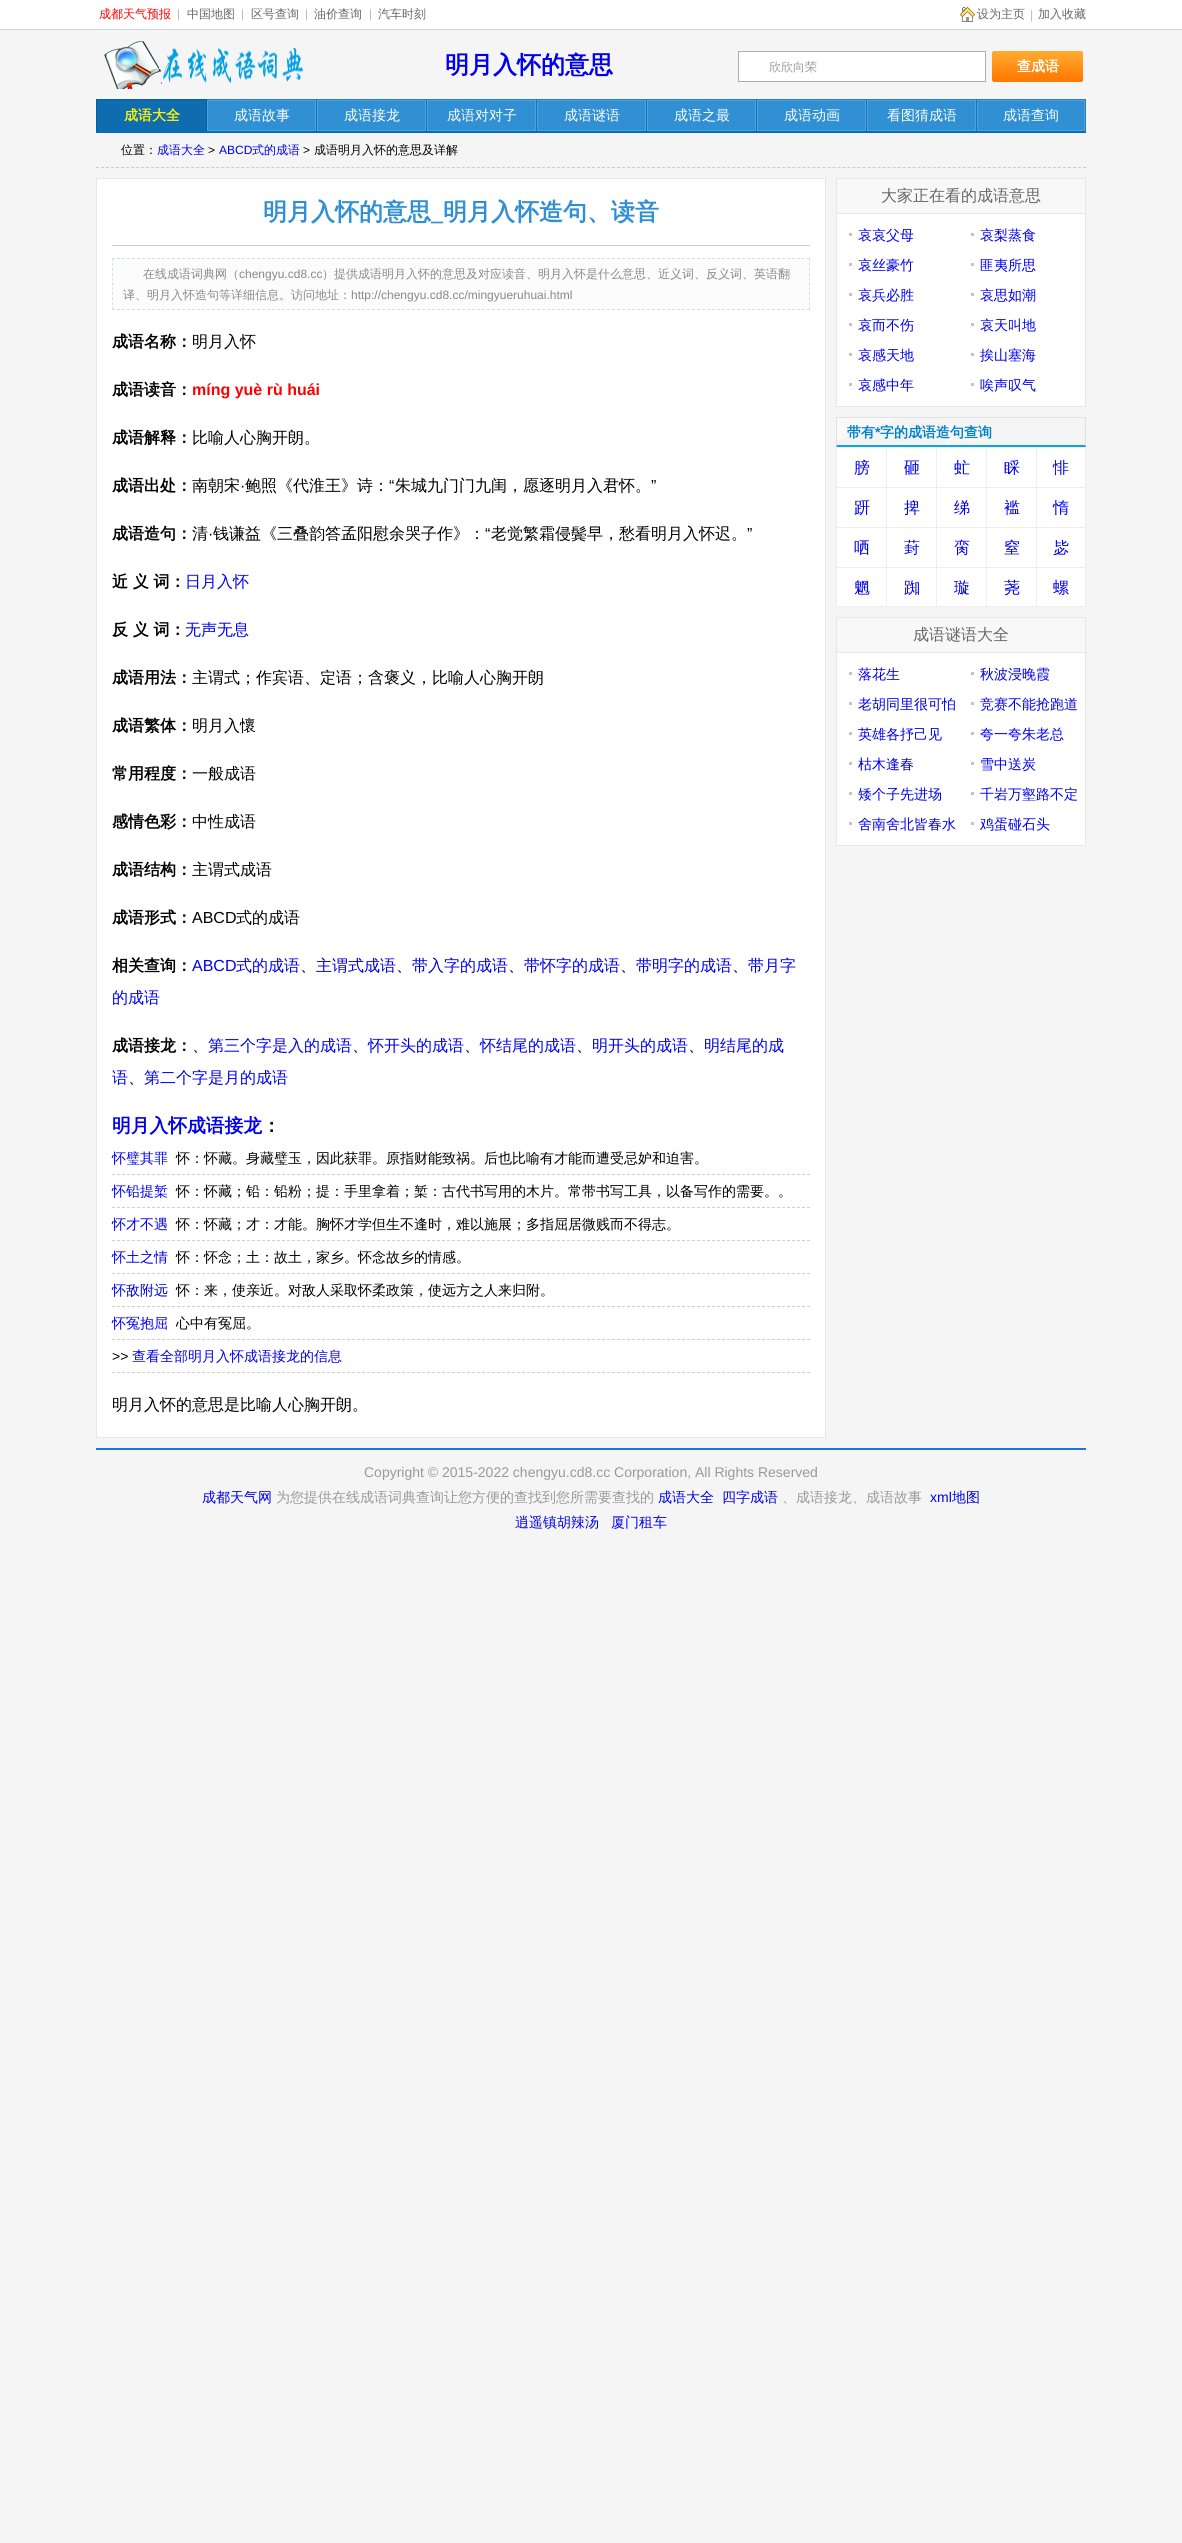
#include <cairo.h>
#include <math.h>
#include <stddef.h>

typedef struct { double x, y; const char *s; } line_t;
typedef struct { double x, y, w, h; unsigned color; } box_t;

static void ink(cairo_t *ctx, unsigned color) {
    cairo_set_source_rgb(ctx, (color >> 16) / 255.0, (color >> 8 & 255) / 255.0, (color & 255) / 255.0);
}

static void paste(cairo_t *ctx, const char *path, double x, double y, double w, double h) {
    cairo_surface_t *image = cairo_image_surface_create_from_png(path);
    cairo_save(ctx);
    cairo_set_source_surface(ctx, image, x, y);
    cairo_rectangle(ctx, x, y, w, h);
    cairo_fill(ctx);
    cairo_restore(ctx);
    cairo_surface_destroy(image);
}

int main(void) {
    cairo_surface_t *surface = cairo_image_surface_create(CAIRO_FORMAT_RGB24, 1182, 2543);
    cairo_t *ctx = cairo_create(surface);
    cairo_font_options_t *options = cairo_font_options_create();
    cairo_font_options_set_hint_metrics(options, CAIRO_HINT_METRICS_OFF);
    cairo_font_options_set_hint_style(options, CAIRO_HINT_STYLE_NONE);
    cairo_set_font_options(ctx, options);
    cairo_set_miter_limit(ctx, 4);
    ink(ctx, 0xF5F5F5);
    cairo_paint(ctx);
    ink(ctx, 0xFFFFFF);
    cairo_rectangle(ctx, 0, 0, 1182, 29);
    cairo_fill(ctx);
    ink(ctx, 0xD0D5DB);
    cairo_rectangle(ctx, 0, 29, 1182, 1);
    cairo_fill(ctx);
    cairo_select_font_face(ctx, "WenQuanYi Zen Hei Medium", CAIRO_FONT_SLANT_NORMAL, CAIRO_FONT_WEIGHT_NORMAL);
    cairo_set_font_size(ctx, 12);
    ink(ctx, 0xFF0000);
    cairo_move_to(ctx, 99, 18);
    cairo_show_text(ctx, "成都天气预报");
    cairo_select_font_face(ctx, "Liberation Sans", CAIRO_FONT_SLANT_NORMAL, CAIRO_FONT_WEIGHT_NORMAL);
    ink(ctx, 0xBCBBBB);
    cairo_move_to(ctx, 177, 18);
    cairo_show_text(ctx, "|");
    cairo_select_font_face(ctx, "WenQuanYi Zen Hei Medium", CAIRO_FONT_SLANT_NORMAL, CAIRO_FONT_WEIGHT_NORMAL);
    ink(ctx, 0x666666);
    cairo_move_to(ctx, 187, 18);
    cairo_show_text(ctx, "中国地图");
    cairo_select_font_face(ctx, "Liberation Sans", CAIRO_FONT_SLANT_NORMAL, CAIRO_FONT_WEIGHT_NORMAL);
    ink(ctx, 0xBCBBBB);
    cairo_move_to(ctx, 241, 18);
    cairo_show_text(ctx, "|");
    cairo_select_font_face(ctx, "WenQuanYi Zen Hei Medium", CAIRO_FONT_SLANT_NORMAL, CAIRO_FONT_WEIGHT_NORMAL);
    ink(ctx, 0x666666);
    cairo_move_to(ctx, 251, 18);
    cairo_show_text(ctx, "区号查询");
    cairo_select_font_face(ctx, "Liberation Sans", CAIRO_FONT_SLANT_NORMAL, CAIRO_FONT_WEIGHT_NORMAL);
    ink(ctx, 0xBCBBBB);
    cairo_move_to(ctx, 305, 18);
    cairo_show_text(ctx, "|");
    cairo_select_font_face(ctx, "WenQuanYi Zen Hei Medium", CAIRO_FONT_SLANT_NORMAL, CAIRO_FONT_WEIGHT_NORMAL);
    ink(ctx, 0x666666);
    cairo_move_to(ctx, 314, 18);
    cairo_show_text(ctx, "油价查询");
    cairo_select_font_face(ctx, "Liberation Sans", CAIRO_FONT_SLANT_NORMAL, CAIRO_FONT_WEIGHT_NORMAL);
    ink(ctx, 0xBCBBBB);
    cairo_move_to(ctx, 369, 18);
    cairo_show_text(ctx, "|");
    cairo_select_font_face(ctx, "WenQuanYi Zen Hei Medium", CAIRO_FONT_SLANT_NORMAL, CAIRO_FONT_WEIGHT_NORMAL);
    ink(ctx, 0x666666);
    cairo_move_to(ctx, 378, 18);
    cairo_show_text(ctx, "汽车时刻");
    paste(ctx, "media/1.png", 960, 6, 15, 16);
    cairo_move_to(ctx, 977, 18);
    cairo_show_text(ctx, "设为主页");
    cairo_select_font_face(ctx, "Liberation Sans", CAIRO_FONT_SLANT_NORMAL, CAIRO_FONT_WEIGHT_NORMAL);
    ink(ctx, 0xBCBBBB);
    cairo_move_to(ctx, 1030, 19);
    cairo_show_text(ctx, "|");
    cairo_select_font_face(ctx, "WenQuanYi Zen Hei Medium", CAIRO_FONT_SLANT_NORMAL, CAIRO_FONT_WEIGHT_NORMAL);
    ink(ctx, 0x666666);
    cairo_move_to(ctx, 1038, 18);
    cairo_show_text(ctx, "加入收藏");
    paste(ctx, "media/2.png", 104, 41, 199, 48);
    cairo_select_font_face(ctx, "WenQuanYi Zen Hei", CAIRO_FONT_SLANT_NORMAL, CAIRO_FONT_WEIGHT_BOLD);
    cairo_set_font_size(ctx, 24);
    ink(ctx, 0x0000EE);
    cairo_move_to(ctx, 445, 73);
    cairo_show_text(ctx, "明月入怀的意思");
    ink(ctx, 0xFFFFFF);
    cairo_rectangle(ctx, 738.5, 51.5, 247, 30);
    cairo_fill_preserve(ctx);
    ink(ctx, 0xADADAD);
    cairo_set_line_width(ctx, 1);
    cairo_stroke(ctx);
    cairo_select_font_face(ctx, "WenQuanYi Zen Hei Medium", CAIRO_FONT_SLANT_NORMAL, CAIRO_FONT_WEIGHT_NORMAL);
    cairo_set_font_size(ctx, 12);
    ink(ctx, 0x999999);
    cairo_move_to(ctx, 769, 71);
    cairo_show_text(ctx, "欣欣向荣");
    paste(ctx, "media/3.png", 992, 51, 91, 31);
    cairo_select_font_face(ctx, "WenQuanYi Zen Hei", CAIRO_FONT_SLANT_NORMAL, CAIRO_FONT_WEIGHT_BOLD);
    cairo_set_font_size(ctx, 14);
    ink(ctx, 0xFFFFFF);
    cairo_move_to(ctx, 1017, 71);
    cairo_show_text(ctx, "查成语");
    {
        static const box_t items[] = {
            {96, 131, 990, 2, 0x026EC1},
            {316, 100, 661, 31, 0x0F75C3},
            {207, 99, 879, 1, 0x267DC4},
            {1085, 99, 1, 32, 0x267DC4},
            {96, 99, 111, 1, 0x035FA4},
            {206, 99, 1, 32, 0x035FA4},
            {96, 99, 1, 32, 0x035FA4},
            {97, 100, 109, 31, 0x0F6DAF},
        };
        for (size_t i = 0; i < sizeof items / sizeof *items; i++) {
            ink(ctx, items[i].color);
            cairo_rectangle(ctx, items[i].x, items[i].y, items[i].w, items[i].h);
            cairo_fill(ctx);
        }
    }
    ink(ctx, 0xF8F011);
    cairo_move_to(ctx, 124, 120);
    cairo_show_text(ctx, "成语大全");
    ink(ctx, 0x3090D3);
    cairo_rectangle(ctx, 207.5, 100.5, 108, 30);
    cairo_fill_preserve(ctx);
    ink(ctx, 0x51A1DA);
    cairo_stroke(ctx);
    cairo_select_font_face(ctx, "WenQuanYi Zen Hei Medium", CAIRO_FONT_SLANT_NORMAL, CAIRO_FONT_WEIGHT_NORMAL);
    ink(ctx, 0xFFFFFF);
    cairo_move_to(ctx, 234, 120);
    cairo_show_text(ctx, "成语故事");
    ink(ctx, 0x3090D3);
    cairo_rectangle(ctx, 317.5, 100.5, 108, 30);
    cairo_fill_preserve(ctx);
    ink(ctx, 0x51A1DA);
    cairo_stroke(ctx);
    ink(ctx, 0xFFFFFF);
    cairo_move_to(ctx, 344, 120);
    cairo_show_text(ctx, "成语接龙");
    ink(ctx, 0x3090D3);
    cairo_rectangle(ctx, 427.5, 100.5, 108, 30);
    cairo_fill_preserve(ctx);
    ink(ctx, 0x51A1DA);
    cairo_stroke(ctx);
    ink(ctx, 0xFFFFFF);
    cairo_move_to(ctx, 447, 120);
    cairo_show_text(ctx, "成语对对子");
    ink(ctx, 0x3090D3);
    cairo_rectangle(ctx, 537.5, 100.5, 108, 30);
    cairo_fill_preserve(ctx);
    ink(ctx, 0x51A1DA);
    cairo_stroke(ctx);
    ink(ctx, 0xFFFFFF);
    cairo_move_to(ctx, 564, 120);
    cairo_show_text(ctx, "成语谜语");
    ink(ctx, 0x3090D3);
    cairo_rectangle(ctx, 647.5, 100.5, 108, 30);
    cairo_fill_preserve(ctx);
    ink(ctx, 0x51A1DA);
    cairo_stroke(ctx);
    ink(ctx, 0xFFFFFF);
    cairo_move_to(ctx, 674, 120);
    cairo_show_text(ctx, "成语之最");
    ink(ctx, 0x3090D3);
    cairo_rectangle(ctx, 757.5, 100.5, 108, 30);
    cairo_fill_preserve(ctx);
    ink(ctx, 0x51A1DA);
    cairo_stroke(ctx);
    ink(ctx, 0xFFFFFF);
    cairo_move_to(ctx, 784, 120);
    cairo_show_text(ctx, "成语动画");
    ink(ctx, 0x3090D3);
    cairo_rectangle(ctx, 867.5, 100.5, 108, 30);
    cairo_fill_preserve(ctx);
    ink(ctx, 0x51A1DA);
    cairo_stroke(ctx);
    ink(ctx, 0xFFFFFF);
    cairo_move_to(ctx, 887, 120);
    cairo_show_text(ctx, "看图猜成语");
    ink(ctx, 0x3090D3);
    cairo_rectangle(ctx, 977.5, 100.5, 107, 30);
    cairo_fill_preserve(ctx);
    ink(ctx, 0x51A1DA);
    cairo_stroke(ctx);
    ink(ctx, 0xFFFFFF);
    cairo_move_to(ctx, 1003, 120);
    cairo_show_text(ctx, "成语查询");
    cairo_new_path(ctx);
    cairo_move_to(ctx, 96, 167.5);
    cairo_line_to(ctx, 1086, 167.5);
    ink(ctx, 0xCCCCCC);
    cairo_set_dash(ctx, (double[]){3, 2.01}, 2, 0);
    cairo_stroke(ctx);
    cairo_set_font_size(ctx, 12);
    ink(ctx, 0x000000);
    cairo_move_to(ctx, 121, 154);
    cairo_show_text(ctx, "位置：");
    ink(ctx, 0x0000EE);
    cairo_move_to(ctx, 157, 154);
    cairo_show_text(ctx, "成语大全");
    cairo_select_font_face(ctx, "Liberation Sans", CAIRO_FONT_SLANT_NORMAL, CAIRO_FONT_WEIGHT_NORMAL);
    ink(ctx, 0x000000);
    cairo_move_to(ctx, 208, 154);
    cairo_show_text(ctx, ">");
    ink(ctx, 0x0000EE);
    cairo_move_to(ctx, 219, 154);
    cairo_show_text(ctx, "ABCD");
    cairo_select_font_face(ctx, "WenQuanYi Zen Hei Medium", CAIRO_FONT_SLANT_NORMAL, CAIRO_FONT_WEIGHT_NORMAL);
    cairo_move_to(ctx, 252, 154);
    cairo_show_text(ctx, "式的成语");
    cairo_select_font_face(ctx, "Liberation Sans", CAIRO_FONT_SLANT_NORMAL, CAIRO_FONT_WEIGHT_NORMAL);
    ink(ctx, 0x000000);
    cairo_move_to(ctx, 303, 154);
    cairo_show_text(ctx, ">");
    cairo_select_font_face(ctx, "WenQuanYi Zen Hei Medium", CAIRO_FONT_SLANT_NORMAL, CAIRO_FONT_WEIGHT_NORMAL);
    cairo_move_to(ctx, 314, 154);
    cairo_show_text(ctx, "成语明月入怀的意思及详解");
    ink(ctx, 0xFFFFFF);
    cairo_rectangle(ctx, 96.5, 178.5, 729, 1259);
    cairo_fill_preserve(ctx);
    ink(ctx, 0xE7E7E7);
    cairo_set_dash(ctx, NULL, 0, 0);
    cairo_stroke(ctx);
    ink(ctx, 0xCCCCCC);
    cairo_rectangle(ctx, 112, 245, 698, 1);
    cairo_fill(ctx);
    cairo_select_font_face(ctx, "WenQuanYi Zen Hei", CAIRO_FONT_SLANT_NORMAL, CAIRO_FONT_WEIGHT_BOLD);
    cairo_set_font_size(ctx, 24);
    ink(ctx, 0x3090D3);
    cairo_move_to(ctx, 263, 220);
    cairo_show_text(ctx, "明月入怀的意思");
    cairo_select_font_face(ctx, "Liberation Serif", CAIRO_FONT_SLANT_NORMAL, CAIRO_FONT_WEIGHT_BOLD);
    cairo_move_to(ctx, 431, 220);
    cairo_show_text(ctx, "_");
    cairo_select_font_face(ctx, "WenQuanYi Zen Hei", CAIRO_FONT_SLANT_NORMAL, CAIRO_FONT_WEIGHT_BOLD);
    cairo_move_to(ctx, 443, 220);
    cairo_show_text(ctx, "明月入怀造句、读音");
    ink(ctx, 0xFCFCFC);
    cairo_rectangle(ctx, 112, 258, 698, 52);
    cairo_fill(ctx);
    cairo_new_path(ctx);
    cairo_move_to(ctx, 112, 258.5);
    cairo_line_to(ctx, 810, 258.5);
    ink(ctx, 0xC9E2F8);
    cairo_set_dash(ctx, (double[]){3, 2}, 2, 0);
    cairo_stroke(ctx);
    cairo_new_path(ctx);
    cairo_move_to(ctx, 809.5, 258);
    cairo_line_to(ctx, 809.5, 310);
    cairo_set_dash(ctx, (double[]){3, 1.9}, 2, 0);
    cairo_stroke(ctx);
    cairo_new_path(ctx);
    cairo_move_to(ctx, 112, 309.5);
    cairo_line_to(ctx, 810, 309.5);
    cairo_set_dash(ctx, (double[]){3, 2}, 2, 0);
    cairo_stroke(ctx);
    cairo_new_path(ctx);
    cairo_move_to(ctx, 112.5, 258);
    cairo_line_to(ctx, 112.5, 310);
    cairo_set_dash(ctx, (double[]){3, 1.9}, 2, 0);
    cairo_stroke(ctx);
    cairo_select_font_face(ctx, "WenQuanYi Zen Hei Medium", CAIRO_FONT_SLANT_NORMAL, CAIRO_FONT_WEIGHT_NORMAL);
    cairo_set_font_size(ctx, 12);
    ink(ctx, 0x888888);
    cairo_move_to(ctx, 143, 278);
    cairo_show_text(ctx, "在线成语词典网（");
    cairo_select_font_face(ctx, "Liberation Sans", CAIRO_FONT_SLANT_NORMAL, CAIRO_FONT_WEIGHT_NORMAL);
    cairo_move_to(ctx, 239, 278);
    cairo_show_text(ctx, "chengyu.cd8.cc");
    cairo_select_font_face(ctx, "WenQuanYi Zen Hei Medium", CAIRO_FONT_SLANT_NORMAL, CAIRO_FONT_WEIGHT_NORMAL);
    cairo_move_to(ctx, 322, 278);
    cairo_show_text(ctx, "）提供成语明月入怀的意思及对应读音、明月入怀是什么意思、近义词、反义词、英语翻");
    cairo_move_to(ctx, 123, 299);
    cairo_show_text(ctx, "译、明月入怀造句等详细信息。访问地址：");
    cairo_select_font_face(ctx, "Liberation Sans", CAIRO_FONT_SLANT_NORMAL, CAIRO_FONT_WEIGHT_NORMAL);
    cairo_move_to(ctx, 351, 299);
    cairo_show_text(ctx, "http://chengyu.cd8.cc/mingyueruhuai.html");
    cairo_select_font_face(ctx, "WenQuanYi Zen Hei", CAIRO_FONT_SLANT_NORMAL, CAIRO_FONT_WEIGHT_BOLD);
    cairo_set_font_size(ctx, 16);
    ink(ctx, 0x000000);
    cairo_move_to(ctx, 112, 347);
    cairo_show_text(ctx, "成语名称：");
    cairo_select_font_face(ctx, "WenQuanYi Zen Hei Medium", CAIRO_FONT_SLANT_NORMAL, CAIRO_FONT_WEIGHT_NORMAL);
    cairo_move_to(ctx, 192, 347);
    cairo_show_text(ctx, "明月入怀");
    cairo_select_font_face(ctx, "WenQuanYi Zen Hei", CAIRO_FONT_SLANT_NORMAL, CAIRO_FONT_WEIGHT_BOLD);
    cairo_move_to(ctx, 112, 395);
    cairo_show_text(ctx, "成语读音：");
    cairo_select_font_face(ctx, "Liberation Sans", CAIRO_FONT_SLANT_NORMAL, CAIRO_FONT_WEIGHT_BOLD);
    ink(ctx, 0xFF0000);
    cairo_move_to(ctx, 192, 395);
    cairo_show_text(ctx, "míng yuè rù huái");
    cairo_select_font_face(ctx, "WenQuanYi Zen Hei", CAIRO_FONT_SLANT_NORMAL, CAIRO_FONT_WEIGHT_BOLD);
    ink(ctx, 0x000000);
    cairo_move_to(ctx, 112, 443);
    cairo_show_text(ctx, "成语解释：");
    cairo_select_font_face(ctx, "WenQuanYi Zen Hei Medium", CAIRO_FONT_SLANT_NORMAL, CAIRO_FONT_WEIGHT_NORMAL);
    cairo_move_to(ctx, 192, 443);
    cairo_show_text(ctx, "比喻人心胸开朗。");
    cairo_select_font_face(ctx, "WenQuanYi Zen Hei", CAIRO_FONT_SLANT_NORMAL, CAIRO_FONT_WEIGHT_BOLD);
    cairo_move_to(ctx, 112, 491);
    cairo_show_text(ctx, "成语出处：");
    cairo_select_font_face(ctx, "WenQuanYi Zen Hei Medium", CAIRO_FONT_SLANT_NORMAL, CAIRO_FONT_WEIGHT_NORMAL);
    cairo_move_to(ctx, 192, 491);
    cairo_show_text(ctx, "南朝宋");
    cairo_move_to(ctx, 245, 491);
    cairo_show_text(ctx, "鲍照《代淮王》诗：");
    cairo_select_font_face(ctx, "Liberation Sans", CAIRO_FONT_SLANT_NORMAL, CAIRO_FONT_WEIGHT_NORMAL);
    cairo_move_to(ctx, 389, 491);
    cairo_show_text(ctx, "“");
    cairo_select_font_face(ctx, "WenQuanYi Zen Hei Medium", CAIRO_FONT_SLANT_NORMAL, CAIRO_FONT_WEIGHT_NORMAL);
    cairo_move_to(ctx, 395, 491);
    cairo_show_text(ctx, "朱城九门门九闺，愿逐明月入君怀。");
    cairo_select_font_face(ctx, "Liberation Sans", CAIRO_FONT_SLANT_NORMAL, CAIRO_FONT_WEIGHT_NORMAL);
    cairo_move_to(ctx, 651, 491);
    cairo_show_text(ctx, "”");
    cairo_move_to(ctx, 240, 491);
    cairo_show_text(ctx, "·");
    cairo_select_font_face(ctx, "WenQuanYi Zen Hei", CAIRO_FONT_SLANT_NORMAL, CAIRO_FONT_WEIGHT_BOLD);
    cairo_move_to(ctx, 112, 539);
    cairo_show_text(ctx, "成语造句：");
    cairo_select_font_face(ctx, "WenQuanYi Zen Hei Medium", CAIRO_FONT_SLANT_NORMAL, CAIRO_FONT_WEIGHT_NORMAL);
    cairo_move_to(ctx, 192, 539);
    cairo_show_text(ctx, "清");
    cairo_move_to(ctx, 213, 539);
    cairo_show_text(ctx, "钱谦益《三叠韵答孟阳慰余哭子作》：");
    cairo_select_font_face(ctx, "Liberation Sans", CAIRO_FONT_SLANT_NORMAL, CAIRO_FONT_WEIGHT_NORMAL);
    cairo_move_to(ctx, 485, 539);
    cairo_show_text(ctx, "“");
    cairo_select_font_face(ctx, "WenQuanYi Zen Hei Medium", CAIRO_FONT_SLANT_NORMAL, CAIRO_FONT_WEIGHT_NORMAL);
    cairo_move_to(ctx, 491, 539);
    cairo_show_text(ctx, "老觉繁霜侵鬓早，愁看明月入怀迟。");
    cairo_select_font_face(ctx, "Liberation Sans", CAIRO_FONT_SLANT_NORMAL, CAIRO_FONT_WEIGHT_NORMAL);
    cairo_move_to(ctx, 747, 539);
    cairo_show_text(ctx, "”");
    cairo_move_to(ctx, 208, 539);
    cairo_show_text(ctx, "·");
    cairo_select_font_face(ctx, "WenQuanYi Zen Hei", CAIRO_FONT_SLANT_NORMAL, CAIRO_FONT_WEIGHT_BOLD);
    cairo_move_to(ctx, 112, 587);
    cairo_show_text(ctx, "近 义 词：");
    cairo_select_font_face(ctx, "WenQuanYi Zen Hei Medium", CAIRO_FONT_SLANT_NORMAL, CAIRO_FONT_WEIGHT_NORMAL);
    ink(ctx, 0x0000EE);
    cairo_move_to(ctx, 185, 587);
    cairo_show_text(ctx, "日月入怀");
    cairo_select_font_face(ctx, "WenQuanYi Zen Hei", CAIRO_FONT_SLANT_NORMAL, CAIRO_FONT_WEIGHT_BOLD);
    ink(ctx, 0x000000);
    cairo_move_to(ctx, 112, 635);
    cairo_show_text(ctx, "反 义 词：");
    cairo_select_font_face(ctx, "WenQuanYi Zen Hei Medium", CAIRO_FONT_SLANT_NORMAL, CAIRO_FONT_WEIGHT_NORMAL);
    ink(ctx, 0x0000EE);
    cairo_move_to(ctx, 185, 635);
    cairo_show_text(ctx, "无声无息");
    cairo_select_font_face(ctx, "WenQuanYi Zen Hei", CAIRO_FONT_SLANT_NORMAL, CAIRO_FONT_WEIGHT_BOLD);
    ink(ctx, 0x000000);
    cairo_move_to(ctx, 112, 683);
    cairo_show_text(ctx, "成语用法：");
    cairo_select_font_face(ctx, "WenQuanYi Zen Hei Medium", CAIRO_FONT_SLANT_NORMAL, CAIRO_FONT_WEIGHT_NORMAL);
    cairo_move_to(ctx, 192, 683);
    cairo_show_text(ctx, "主谓式；作宾语、定语；含褒义，比喻人心胸开朗");
    cairo_select_font_face(ctx, "WenQuanYi Zen Hei", CAIRO_FONT_SLANT_NORMAL, CAIRO_FONT_WEIGHT_BOLD);
    cairo_move_to(ctx, 112, 731);
    cairo_show_text(ctx, "成语繁体：");
    cairo_select_font_face(ctx, "WenQuanYi Zen Hei Medium", CAIRO_FONT_SLANT_NORMAL, CAIRO_FONT_WEIGHT_NORMAL);
    cairo_move_to(ctx, 192, 731);
    cairo_show_text(ctx, "明月入懷");
    cairo_select_font_face(ctx, "WenQuanYi Zen Hei", CAIRO_FONT_SLANT_NORMAL, CAIRO_FONT_WEIGHT_BOLD);
    cairo_move_to(ctx, 112, 779);
    cairo_show_text(ctx, "常用程度：");
    cairo_select_font_face(ctx, "WenQuanYi Zen Hei Medium", CAIRO_FONT_SLANT_NORMAL, CAIRO_FONT_WEIGHT_NORMAL);
    cairo_move_to(ctx, 192, 779);
    cairo_show_text(ctx, "一般成语");
    cairo_select_font_face(ctx, "WenQuanYi Zen Hei", CAIRO_FONT_SLANT_NORMAL, CAIRO_FONT_WEIGHT_BOLD);
    cairo_move_to(ctx, 112, 827);
    cairo_show_text(ctx, "感情色彩：");
    cairo_select_font_face(ctx, "WenQuanYi Zen Hei Medium", CAIRO_FONT_SLANT_NORMAL, CAIRO_FONT_WEIGHT_NORMAL);
    cairo_move_to(ctx, 192, 827);
    cairo_show_text(ctx, "中性成语");
    cairo_select_font_face(ctx, "WenQuanYi Zen Hei", CAIRO_FONT_SLANT_NORMAL, CAIRO_FONT_WEIGHT_BOLD);
    cairo_move_to(ctx, 112, 875);
    cairo_show_text(ctx, "成语结构：");
    cairo_select_font_face(ctx, "WenQuanYi Zen Hei Medium", CAIRO_FONT_SLANT_NORMAL, CAIRO_FONT_WEIGHT_NORMAL);
    cairo_move_to(ctx, 192, 875);
    cairo_show_text(ctx, "主谓式成语");
    cairo_select_font_face(ctx, "WenQuanYi Zen Hei", CAIRO_FONT_SLANT_NORMAL, CAIRO_FONT_WEIGHT_BOLD);
    cairo_move_to(ctx, 112, 923);
    cairo_show_text(ctx, "成语形式：");
    cairo_select_font_face(ctx, "Liberation Sans", CAIRO_FONT_SLANT_NORMAL, CAIRO_FONT_WEIGHT_NORMAL);
    cairo_move_to(ctx, 192, 923);
    cairo_show_text(ctx, "ABCD");
    cairo_select_font_face(ctx, "WenQuanYi Zen Hei Medium", CAIRO_FONT_SLANT_NORMAL, CAIRO_FONT_WEIGHT_NORMAL);
    cairo_move_to(ctx, 236, 923);
    cairo_show_text(ctx, "式的成语");
    cairo_select_font_face(ctx, "WenQuanYi Zen Hei", CAIRO_FONT_SLANT_NORMAL, CAIRO_FONT_WEIGHT_BOLD);
    cairo_move_to(ctx, 112, 971);
    cairo_show_text(ctx, "相关查询：");
    cairo_select_font_face(ctx, "Liberation Sans", CAIRO_FONT_SLANT_NORMAL, CAIRO_FONT_WEIGHT_NORMAL);
    ink(ctx, 0x0000EE);
    cairo_move_to(ctx, 192, 971);
    cairo_show_text(ctx, "ABCD");
    cairo_select_font_face(ctx, "WenQuanYi Zen Hei Medium", CAIRO_FONT_SLANT_NORMAL, CAIRO_FONT_WEIGHT_NORMAL);
    cairo_move_to(ctx, 236, 971);
    cairo_show_text(ctx, "式的成语");
    ink(ctx, 0x000000);
    cairo_move_to(ctx, 300, 971);
    cairo_show_text(ctx, "、");
    ink(ctx, 0x0000EE);
    cairo_move_to(ctx, 316, 971);
    cairo_show_text(ctx, "主谓式成语");
    ink(ctx, 0x000000);
    cairo_move_to(ctx, 396, 971);
    cairo_show_text(ctx, "、");
    ink(ctx, 0x0000EE);
    cairo_move_to(ctx, 412, 971);
    cairo_show_text(ctx, "带入字的成语");
    ink(ctx, 0x000000);
    cairo_move_to(ctx, 508, 971);
    cairo_show_text(ctx, "、");
    ink(ctx, 0x0000EE);
    cairo_move_to(ctx, 524, 971);
    cairo_show_text(ctx, "带怀字的成语");
    ink(ctx, 0x000000);
    cairo_move_to(ctx, 620, 971);
    cairo_show_text(ctx, "、");
    ink(ctx, 0x0000EE);
    cairo_move_to(ctx, 636, 971);
    cairo_show_text(ctx, "带明字的成语");
    ink(ctx, 0x000000);
    cairo_move_to(ctx, 732, 971);
    cairo_show_text(ctx, "、");
    ink(ctx, 0x0000EE);
    cairo_move_to(ctx, 748, 971);
    cairo_show_text(ctx, "带月字");
    cairo_move_to(ctx, 112, 1003);
    cairo_show_text(ctx, "的成语");
    cairo_select_font_face(ctx, "WenQuanYi Zen Hei", CAIRO_FONT_SLANT_NORMAL, CAIRO_FONT_WEIGHT_BOLD);
    ink(ctx, 0x000000);
    cairo_move_to(ctx, 112, 1051);
    cairo_show_text(ctx, "成语接龙：");
    cairo_select_font_face(ctx, "WenQuanYi Zen Hei Medium", CAIRO_FONT_SLANT_NORMAL, CAIRO_FONT_WEIGHT_NORMAL);
    cairo_move_to(ctx, 192, 1051);
    cairo_show_text(ctx, "、");
    ink(ctx, 0x0000EE);
    cairo_move_to(ctx, 208, 1051);
    cairo_show_text(ctx, "第三个字是入的成语");
    ink(ctx, 0x000000);
    cairo_move_to(ctx, 352, 1051);
    cairo_show_text(ctx, "、");
    ink(ctx, 0x0000EE);
    cairo_move_to(ctx, 368, 1051);
    cairo_show_text(ctx, "怀开头的成语");
    ink(ctx, 0x000000);
    cairo_move_to(ctx, 464, 1051);
    cairo_show_text(ctx, "、");
    ink(ctx, 0x0000EE);
    cairo_move_to(ctx, 480, 1051);
    cairo_show_text(ctx, "怀结尾的成语");
    ink(ctx, 0x000000);
    cairo_move_to(ctx, 576, 1051);
    cairo_show_text(ctx, "、");
    ink(ctx, 0x0000EE);
    cairo_move_to(ctx, 592, 1051);
    cairo_show_text(ctx, "明开头的成语");
    ink(ctx, 0x000000);
    cairo_move_to(ctx, 688, 1051);
    cairo_show_text(ctx, "、");
    ink(ctx, 0x0000EE);
    cairo_move_to(ctx, 704, 1051);
    cairo_show_text(ctx, "明结尾的成");
    cairo_move_to(ctx, 112, 1083);
    cairo_show_text(ctx, "语");
    ink(ctx, 0x000000);
    cairo_move_to(ctx, 128, 1083);
    cairo_show_text(ctx, "、");
    ink(ctx, 0x0000EE);
    cairo_move_to(ctx, 144, 1083);
    cairo_show_text(ctx, "第二个字是月的成语");
    cairo_select_font_face(ctx, "WenQuanYi Zen Hei", CAIRO_FONT_SLANT_NORMAL, CAIRO_FONT_WEIGHT_BOLD);
    cairo_set_font_size(ctx, 18.75);
    cairo_move_to(ctx, 112, 1132);
    cairo_show_text(ctx, "明月入怀成语接龙");
    ink(ctx, 0x000000);
    cairo_move_to(ctx, 262, 1132);
    cairo_show_text(ctx, "：");
    cairo_new_path(ctx);
    cairo_move_to(ctx, 112, 1174.5);
    cairo_line_to(ctx, 810, 1174.5);
    ink(ctx, 0xCFCFCF);
    cairo_set_dash(ctx, (double[]){3, 2}, 2, 0);
    cairo_stroke(ctx);
    cairo_select_font_face(ctx, "WenQuanYi Zen Hei Medium", CAIRO_FONT_SLANT_NORMAL, CAIRO_FONT_WEIGHT_NORMAL);
    cairo_set_font_size(ctx, 14);
    ink(ctx, 0x0000EE);
    cairo_move_to(ctx, 112, 1163);
    cairo_show_text(ctx, "怀璧其罪");
    ink(ctx, 0x000000);
    cairo_move_to(ctx, 176, 1163);
    cairo_show_text(ctx, "怀：怀藏。身藏璧玉，因此获罪。原指财能致祸。后也比喻有才能而遭受忌妒和迫害。");
    cairo_new_path(ctx);
    cairo_move_to(ctx, 112, 1207.5);
    cairo_line_to(ctx, 810, 1207.5);
    ink(ctx, 0xCFCFCF);
    cairo_stroke(ctx);
    ink(ctx, 0x0000EE);
    cairo_move_to(ctx, 112, 1196);
    cairo_show_text(ctx, "怀铅提椠");
    ink(ctx, 0x000000);
    cairo_move_to(ctx, 176, 1196);
    cairo_show_text(ctx, "怀：怀藏；铅：铅粉；提：手里拿着；椠：古代书写用的木片。常带书写工具，以备写作的需要。。");
    cairo_new_path(ctx);
    cairo_move_to(ctx, 112, 1240.5);
    cairo_line_to(ctx, 810, 1240.5);
    ink(ctx, 0xCFCFCF);
    cairo_stroke(ctx);
    ink(ctx, 0x0000EE);
    cairo_move_to(ctx, 112, 1229);
    cairo_show_text(ctx, "怀才不遇");
    ink(ctx, 0x000000);
    cairo_move_to(ctx, 176, 1229);
    cairo_show_text(ctx, "怀：怀藏；才：才能。胸怀才学但生不逢时，难以施展；多指屈居微贱而不得志。");
    cairo_new_path(ctx);
    cairo_move_to(ctx, 112, 1273.5);
    cairo_line_to(ctx, 810, 1273.5);
    ink(ctx, 0xCFCFCF);
    cairo_stroke(ctx);
    ink(ctx, 0x0000EE);
    cairo_move_to(ctx, 112, 1262);
    cairo_show_text(ctx, "怀土之情");
    ink(ctx, 0x000000);
    cairo_move_to(ctx, 176, 1262);
    cairo_show_text(ctx, "怀：怀念；土：故土，家乡。怀念故乡的情感。");
    cairo_new_path(ctx);
    cairo_move_to(ctx, 112, 1306.5);
    cairo_line_to(ctx, 810, 1306.5);
    ink(ctx, 0xCFCFCF);
    cairo_stroke(ctx);
    ink(ctx, 0x0000EE);
    cairo_move_to(ctx, 112, 1295);
    cairo_show_text(ctx, "怀敌附远");
    ink(ctx, 0x000000);
    cairo_move_to(ctx, 176, 1295);
    cairo_show_text(ctx, "怀：来，使亲近。对敌人采取怀柔政策，使远方之人来归附。");
    cairo_new_path(ctx);
    cairo_move_to(ctx, 112, 1339.5);
    cairo_line_to(ctx, 810, 1339.5);
    ink(ctx, 0xCFCFCF);
    cairo_stroke(ctx);
    ink(ctx, 0x0000EE);
    cairo_move_to(ctx, 112, 1328);
    cairo_show_text(ctx, "怀冤抱屈");
    ink(ctx, 0x000000);
    cairo_move_to(ctx, 176, 1328);
    cairo_show_text(ctx, "心中有冤屈。");
    cairo_new_path(ctx);
    cairo_move_to(ctx, 112, 1372.5);
    cairo_line_to(ctx, 810, 1372.5);
    ink(ctx, 0xCFCFCF);
    cairo_stroke(ctx);
    cairo_select_font_face(ctx, "Liberation Sans", CAIRO_FONT_SLANT_NORMAL, CAIRO_FONT_WEIGHT_NORMAL);
    ink(ctx, 0x000000);
    cairo_move_to(ctx, 112, 1361);
    cairo_show_text(ctx, ">>");
    cairo_select_font_face(ctx, "WenQuanYi Zen Hei Medium", CAIRO_FONT_SLANT_NORMAL, CAIRO_FONT_WEIGHT_NORMAL);
    ink(ctx, 0x0000EE);
    cairo_move_to(ctx, 132, 1361);
    cairo_show_text(ctx, "查看全部明月入怀成语接龙的信息");
    cairo_set_font_size(ctx, 16);
    ink(ctx, 0x000000);
    cairo_move_to(ctx, 112, 1410);
    cairo_show_text(ctx, "明月入怀的意思是比喻人心胸开朗。");
    ink(ctx, 0xFFFFFF);
    cairo_rectangle(ctx, 837, 214, 248, 192);
    cairo_fill(ctx);
    cairo_rectangle(ctx, 836.5, 178.5, 249, 228);
    ink(ctx, 0xE7E7E7);
    cairo_set_dash(ctx, NULL, 0, 0);
    cairo_stroke(ctx);
    ink(ctx, 0xF8F8F8);
    cairo_rectangle(ctx, 837, 179, 248, 34);
    cairo_fill(ctx);
    ink(ctx, 0xE7E7E7);
    cairo_rectangle(ctx, 837, 213, 248, 1);
    cairo_fill(ctx);
    ink(ctx, 0x666666);
    cairo_move_to(ctx, 881, 201);
    cairo_show_text(ctx, "大家正在看的成语意思");
    ink(ctx, 0xC3C3C3);
    cairo_rectangle(ctx, 849, 233, 3, 3);
    cairo_fill(ctx);
    cairo_set_font_size(ctx, 14);
    ink(ctx, 0x0000EE);
    cairo_move_to(ctx, 858, 240);
    cairo_show_text(ctx, "哀哀父母");
    ink(ctx, 0xC3C3C3);
    cairo_rectangle(ctx, 971, 233, 3, 3);
    cairo_fill(ctx);
    ink(ctx, 0x0000EE);
    cairo_move_to(ctx, 980, 240);
    cairo_show_text(ctx, "哀梨蒸食");
    ink(ctx, 0xC3C3C3);
    cairo_rectangle(ctx, 849, 263, 3, 3);
    cairo_fill(ctx);
    ink(ctx, 0x0000EE);
    cairo_move_to(ctx, 858, 270);
    cairo_show_text(ctx, "哀丝豪竹");
    ink(ctx, 0xC3C3C3);
    cairo_rectangle(ctx, 971, 263, 3, 3);
    cairo_fill(ctx);
    ink(ctx, 0x0000EE);
    cairo_move_to(ctx, 980, 270);
    cairo_show_text(ctx, "匪夷所思");
    ink(ctx, 0xC3C3C3);
    cairo_rectangle(ctx, 849, 293, 3, 3);
    cairo_fill(ctx);
    ink(ctx, 0x0000EE);
    cairo_move_to(ctx, 858, 300);
    cairo_show_text(ctx, "哀兵必胜");
    ink(ctx, 0xC3C3C3);
    cairo_rectangle(ctx, 971, 293, 3, 3);
    cairo_fill(ctx);
    ink(ctx, 0x0000EE);
    cairo_move_to(ctx, 980, 300);
    cairo_show_text(ctx, "哀思如潮");
    ink(ctx, 0xC3C3C3);
    cairo_rectangle(ctx, 849, 323, 3, 3);
    cairo_fill(ctx);
    ink(ctx, 0x0000EE);
    cairo_move_to(ctx, 858, 330);
    cairo_show_text(ctx, "哀而不伤");
    ink(ctx, 0xC3C3C3);
    cairo_rectangle(ctx, 971, 323, 3, 3);
    cairo_fill(ctx);
    ink(ctx, 0x0000EE);
    cairo_move_to(ctx, 980, 330);
    cairo_show_text(ctx, "哀天叫地");
    ink(ctx, 0xC3C3C3);
    cairo_rectangle(ctx, 849, 353, 3, 3);
    cairo_fill(ctx);
    ink(ctx, 0x0000EE);
    cairo_move_to(ctx, 858, 360);
    cairo_show_text(ctx, "哀感天地");
    ink(ctx, 0xC3C3C3);
    cairo_rectangle(ctx, 971, 353, 3, 3);
    cairo_fill(ctx);
    ink(ctx, 0x0000EE);
    cairo_move_to(ctx, 980, 360);
    cairo_show_text(ctx, "挨山塞海");
    ink(ctx, 0xC3C3C3);
    cairo_rectangle(ctx, 849, 383, 3, 3);
    cairo_fill(ctx);
    ink(ctx, 0x0000EE);
    cairo_move_to(ctx, 858, 390);
    cairo_show_text(ctx, "哀感中年");
    ink(ctx, 0xC3C3C3);
    cairo_rectangle(ctx, 971, 383, 3, 3);
    cairo_fill(ctx);
    ink(ctx, 0x0000EE);
    cairo_move_to(ctx, 980, 390);
    cairo_show_text(ctx, "唉声叹气");
    paste(ctx, "media/4.png", 837, 418, 108, 27);
    ink(ctx, 0xE1E1E1);
    cairo_rectangle(ctx, 836, 417, 250, 1);
    cairo_fill(ctx);
    cairo_new_path(ctx);
    cairo_move_to(ctx, 1086, 417);
    cairo_line_to(ctx, 1086, 447);
    cairo_line_to(ctx, 1085, 445);
    cairo_line_to(ctx, 1085, 418);
    cairo_close_path(ctx);
    cairo_fill(ctx);
    ink(ctx, 0x0EA3DA);
    cairo_new_path(ctx);
    cairo_move_to(ctx, 1086, 447);
    cairo_line_to(ctx, 836, 447);
    cairo_line_to(ctx, 837, 445);
    cairo_line_to(ctx, 1085, 445);
    cairo_close_path(ctx);
    cairo_fill(ctx);
    ink(ctx, 0xE1E1E1);
    cairo_new_path(ctx);
    cairo_move_to(ctx, 836, 447);
    cairo_line_to(ctx, 836, 417);
    cairo_line_to(ctx, 837, 418);
    cairo_line_to(ctx, 837, 445);
    cairo_close_path(ctx);
    cairo_fill(ctx);
    cairo_select_font_face(ctx, "WenQuanYi Zen Hei", CAIRO_FONT_SLANT_NORMAL, CAIRO_FONT_WEIGHT_BOLD);
    ink(ctx, 0x0082CB);
    cairo_move_to(ctx, 847, 437);
    cairo_show_text(ctx, "带有");
    cairo_select_font_face(ctx, "Liberation Sans", CAIRO_FONT_SLANT_NORMAL, CAIRO_FONT_WEIGHT_BOLD);
    cairo_move_to(ctx, 875, 437);
    cairo_show_text(ctx, "*");
    cairo_select_font_face(ctx, "WenQuanYi Zen Hei", CAIRO_FONT_SLANT_NORMAL, CAIRO_FONT_WEIGHT_BOLD);
    cairo_move_to(ctx, 880, 437);
    cairo_show_text(ctx, "字的成语造句查询");
    {
        static const box_t items[] = {
            {837, 448, 248, 158, 0xFFFFFF},
            {836, 447, 250, 1, 0xEEEEEE},
            {836, 447, 1, 40, 0xEEEEEE},
        };
        for (size_t i = 0; i < sizeof items / sizeof *items; i++) {
            ink(ctx, items[i].color);
            cairo_rectangle(ctx, items[i].x, items[i].y, items[i].w, items[i].h);
            cairo_fill(ctx);
        }
    }
    cairo_select_font_face(ctx, "WenQuanYi Zen Hei Medium", CAIRO_FONT_SLANT_NORMAL, CAIRO_FONT_WEIGHT_NORMAL);
    cairo_set_font_size(ctx, 16);
    ink(ctx, 0x0000EE);
    cairo_move_to(ctx, 854, 473);
    cairo_show_text(ctx, "膀");
    ink(ctx, 0xEEEEEE);
    cairo_rectangle(ctx, 886, 447, 1, 40);
    cairo_fill(ctx);
    ink(ctx, 0x0000EE);
    cairo_move_to(ctx, 904, 473);
    cairo_show_text(ctx, "砸");
    ink(ctx, 0xEEEEEE);
    cairo_rectangle(ctx, 936, 447, 1, 40);
    cairo_fill(ctx);
    ink(ctx, 0x0000EE);
    cairo_move_to(ctx, 954, 473);
    cairo_show_text(ctx, "虻");
    ink(ctx, 0xEEEEEE);
    cairo_rectangle(ctx, 986, 447, 1, 40);
    cairo_fill(ctx);
    ink(ctx, 0x0000EE);
    cairo_move_to(ctx, 1004, 473);
    cairo_show_text(ctx, "睬");
    ink(ctx, 0xEEEEEE);
    cairo_rectangle(ctx, 1085, 447, 1, 40);
    cairo_fill(ctx);
    cairo_rectangle(ctx, 1036, 447, 1, 40);
    cairo_fill(ctx);
    ink(ctx, 0x0000EE);
    cairo_move_to(ctx, 1053, 473);
    cairo_show_text(ctx, "悱");
    ink(ctx, 0xEEEEEE);
    cairo_rectangle(ctx, 836, 487, 250, 1);
    cairo_fill(ctx);
    cairo_rectangle(ctx, 836, 487, 1, 40);
    cairo_fill(ctx);
    ink(ctx, 0x0000EE);
    cairo_move_to(ctx, 854, 513);
    cairo_show_text(ctx, "趼");
    ink(ctx, 0xEEEEEE);
    cairo_rectangle(ctx, 886, 487, 1, 40);
    cairo_fill(ctx);
    ink(ctx, 0x0000EE);
    cairo_move_to(ctx, 904, 513);
    cairo_show_text(ctx, "捭");
    ink(ctx, 0xEEEEEE);
    cairo_rectangle(ctx, 936, 487, 1, 40);
    cairo_fill(ctx);
    ink(ctx, 0x0000EE);
    cairo_move_to(ctx, 954, 513);
    cairo_show_text(ctx, "绨");
    ink(ctx, 0xEEEEEE);
    cairo_rectangle(ctx, 986, 487, 1, 40);
    cairo_fill(ctx);
    ink(ctx, 0x0000EE);
    cairo_move_to(ctx, 1004, 513);
    cairo_show_text(ctx, "褴");
    ink(ctx, 0xEEEEEE);
    cairo_rectangle(ctx, 1085, 487, 1, 40);
    cairo_fill(ctx);
    cairo_rectangle(ctx, 1036, 487, 1, 40);
    cairo_fill(ctx);
    ink(ctx, 0x0000EE);
    cairo_move_to(ctx, 1053, 513);
    cairo_show_text(ctx, "惰");
    ink(ctx, 0xEEEEEE);
    cairo_rectangle(ctx, 836, 527, 250, 1);
    cairo_fill(ctx);
    cairo_rectangle(ctx, 836, 527, 1, 40);
    cairo_fill(ctx);
    ink(ctx, 0x0000EE);
    cairo_move_to(ctx, 854, 553);
    cairo_show_text(ctx, "哂");
    ink(ctx, 0xEEEEEE);
    cairo_rectangle(ctx, 886, 527, 1, 40);
    cairo_fill(ctx);
    ink(ctx, 0x0000EE);
    cairo_move_to(ctx, 904, 553);
    cairo_show_text(ctx, "葑");
    ink(ctx, 0xEEEEEE);
    cairo_rectangle(ctx, 936, 527, 1, 40);
    cairo_fill(ctx);
    ink(ctx, 0x0000EE);
    cairo_move_to(ctx, 954, 553);
    cairo_show_text(ctx, "脔");
    ink(ctx, 0xEEEEEE);
    cairo_rectangle(ctx, 986, 527, 1, 40);
    cairo_fill(ctx);
    ink(ctx, 0x0000EE);
    cairo_move_to(ctx, 1004, 553);
    cairo_show_text(ctx, "窒");
    ink(ctx, 0xEEEEEE);
    cairo_rectangle(ctx, 1085, 527, 1, 40);
    cairo_fill(ctx);
    cairo_rectangle(ctx, 1036, 527, 1, 40);
    cairo_fill(ctx);
    ink(ctx, 0x0000EE);
    cairo_move_to(ctx, 1053, 553);
    cairo_show_text(ctx, "毖");
    {
        static const box_t items[] = {
            {836, 567, 200, 1, 0xEEEEEE},
            {836, 606, 200, 1, 0xEEEEEE},
            {836, 567, 1, 40, 0xEEEEEE},
        };
        for (size_t i = 0; i < sizeof items / sizeof *items; i++) {
            ink(ctx, items[i].color);
            cairo_rectangle(ctx, items[i].x, items[i].y, items[i].w, items[i].h);
            cairo_fill(ctx);
        }
    }
    ink(ctx, 0x0000EE);
    cairo_move_to(ctx, 854, 593);
    cairo_show_text(ctx, "魍");
    ink(ctx, 0xEEEEEE);
    cairo_rectangle(ctx, 886, 567, 1, 40);
    cairo_fill(ctx);
    ink(ctx, 0x0000EE);
    cairo_move_to(ctx, 904, 593);
    cairo_show_text(ctx, "踟");
    ink(ctx, 0xEEEEEE);
    cairo_rectangle(ctx, 936, 567, 1, 40);
    cairo_fill(ctx);
    ink(ctx, 0x0000EE);
    cairo_move_to(ctx, 954, 593);
    cairo_show_text(ctx, "璇");
    ink(ctx, 0xEEEEEE);
    cairo_rectangle(ctx, 986, 567, 1, 40);
    cairo_fill(ctx);
    ink(ctx, 0x0000EE);
    cairo_move_to(ctx, 1004, 593);
    cairo_show_text(ctx, "荛");
    cairo_rectangle(ctx, 1036.5, 567.5, 49, 39);
    ink(ctx, 0xEEEEEE);
    cairo_stroke(ctx);
    ink(ctx, 0x0000EE);
    cairo_move_to(ctx, 1053, 593);
    cairo_show_text(ctx, "螺");
    ink(ctx, 0xFFFFFF);
    cairo_rectangle(ctx, 837, 653, 248, 192);
    cairo_fill(ctx);
    cairo_rectangle(ctx, 836.5, 617.5, 249, 228);
    ink(ctx, 0xE7E7E7);
    cairo_stroke(ctx);
    ink(ctx, 0xF8F8F8);
    cairo_rectangle(ctx, 837, 618, 248, 34);
    cairo_fill(ctx);
    ink(ctx, 0xE7E7E7);
    cairo_rectangle(ctx, 837, 652, 248, 1);
    cairo_fill(ctx);
    ink(ctx, 0x666666);
    cairo_move_to(ctx, 913, 640);
    cairo_show_text(ctx, "成语谜语大全");
    ink(ctx, 0xC3C3C3);
    cairo_rectangle(ctx, 849, 672, 3, 3);
    cairo_fill(ctx);
    cairo_set_font_size(ctx, 14);
    ink(ctx, 0x0000EE);
    cairo_move_to(ctx, 858, 679);
    cairo_show_text(ctx, "落花生");
    ink(ctx, 0xC3C3C3);
    cairo_rectangle(ctx, 971, 672, 3, 3);
    cairo_fill(ctx);
    ink(ctx, 0x0000EE);
    cairo_move_to(ctx, 980, 679);
    cairo_show_text(ctx, "秋波浸晚霞");
    ink(ctx, 0xC3C3C3);
    cairo_rectangle(ctx, 849, 702, 3, 3);
    cairo_fill(ctx);
    ink(ctx, 0x0000EE);
    cairo_move_to(ctx, 858, 709);
    cairo_show_text(ctx, "老胡同里很可怕");
    ink(ctx, 0xC3C3C3);
    cairo_rectangle(ctx, 971, 702, 3, 3);
    cairo_fill(ctx);
    ink(ctx, 0x0000EE);
    cairo_move_to(ctx, 980, 709);
    cairo_show_text(ctx, "竞赛不能抢跑道");
    ink(ctx, 0xC3C3C3);
    cairo_rectangle(ctx, 849, 732, 3, 3);
    cairo_fill(ctx);
    ink(ctx, 0x0000EE);
    cairo_move_to(ctx, 858, 739);
    cairo_show_text(ctx, "英雄各抒己见");
    ink(ctx, 0xC3C3C3);
    cairo_rectangle(ctx, 971, 732, 3, 3);
    cairo_fill(ctx);
    ink(ctx, 0x0000EE);
    cairo_move_to(ctx, 980, 739);
    cairo_show_text(ctx, "夸一夸朱老总");
    ink(ctx, 0xC3C3C3);
    cairo_rectangle(ctx, 849, 762, 3, 3);
    cairo_fill(ctx);
    ink(ctx, 0x0000EE);
    cairo_move_to(ctx, 858, 769);
    cairo_show_text(ctx, "枯木逢春");
    ink(ctx, 0xC3C3C3);
    cairo_rectangle(ctx, 971, 762, 3, 3);
    cairo_fill(ctx);
    ink(ctx, 0x0000EE);
    cairo_move_to(ctx, 980, 769);
    cairo_show_text(ctx, "雪中送炭");
    ink(ctx, 0xC3C3C3);
    cairo_rectangle(ctx, 849, 792, 3, 3);
    cairo_fill(ctx);
    ink(ctx, 0x0000EE);
    cairo_move_to(ctx, 858, 799);
    cairo_show_text(ctx, "矮个子先进场");
    ink(ctx, 0xC3C3C3);
    cairo_rectangle(ctx, 971, 792, 3, 3);
    cairo_fill(ctx);
    ink(ctx, 0x0000EE);
    cairo_move_to(ctx, 980, 799);
    cairo_show_text(ctx, "千岩万壑路不定");
    ink(ctx, 0xC3C3C3);
    cairo_rectangle(ctx, 849, 822, 3, 3);
    cairo_fill(ctx);
    ink(ctx, 0x0000EE);
    cairo_move_to(ctx, 858, 829);
    cairo_show_text(ctx, "舍南舍北皆春水");
    ink(ctx, 0xC3C3C3);
    cairo_rectangle(ctx, 971, 822, 3, 3);
    cairo_fill(ctx);
    ink(ctx, 0x0000EE);
    cairo_move_to(ctx, 980, 829);
    cairo_show_text(ctx, "鸡蛋碰石头");
    ink(ctx, 0x1679DD);
    cairo_rectangle(ctx, 96, 1448, 990, 2);
    cairo_fill(ctx);
    cairo_select_font_face(ctx, "Liberation Sans", CAIRO_FONT_SLANT_NORMAL, CAIRO_FONT_WEIGHT_NORMAL);
    ink(ctx, 0x999999);
    cairo_move_to(ctx, 364, 1477);
    cairo_show_text(ctx, "Copyright © 2015-2022 chengyu.cd8.cc Corporation, All Rights Reserved");
    cairo_select_font_face(ctx, "WenQuanYi Zen Hei Medium", CAIRO_FONT_SLANT_NORMAL, CAIRO_FONT_WEIGHT_NORMAL);
    ink(ctx, 0x0000EE);
    cairo_move_to(ctx, 202, 1502);
    cairo_show_text(ctx, "成都天气网");
    ink(ctx, 0x999999);
    cairo_move_to(ctx, 276, 1502);
    cairo_show_text(ctx, "为您提供在线成语词典查询让您方便的查找到您所需要查找的");
    ink(ctx, 0x0000EE);
    cairo_move_to(ctx, 658, 1502);
    cairo_show_text(ctx, "成语大全");
    cairo_move_to(ctx, 722, 1502);
    cairo_show_text(ctx, "四字成语");
    ink(ctx, 0x999999);
    cairo_move_to(ctx, 782, 1502);
    cairo_show_text(ctx, "、成语接龙、成语故事");
    cairo_select_font_face(ctx, "Liberation Sans", CAIRO_FONT_SLANT_NORMAL, CAIRO_FONT_WEIGHT_NORMAL);
    ink(ctx, 0x0000EE);
    cairo_move_to(ctx, 930, 1502);
    cairo_show_text(ctx, "xml");
    cairo_select_font_face(ctx, "WenQuanYi Zen Hei Medium", CAIRO_FONT_SLANT_NORMAL, CAIRO_FONT_WEIGHT_NORMAL);
    {
        static const line_t items[] = {
            {952, 1502, "地图"},
            {515, 1527, "逍遥镇胡辣汤"},
            {611, 1527, "厦门租车"},
        };
        for (size_t i = 0; i < sizeof items / sizeof *items; i++) {
            cairo_move_to(ctx, items[i].x, items[i].y);
            cairo_show_text(ctx, items[i].s);
        }
    }
    cairo_surface_write_to_png(surface, "image.png");
    cairo_font_options_destroy(options);
    cairo_destroy(ctx);
    cairo_surface_destroy(surface);
    return 0;
}
